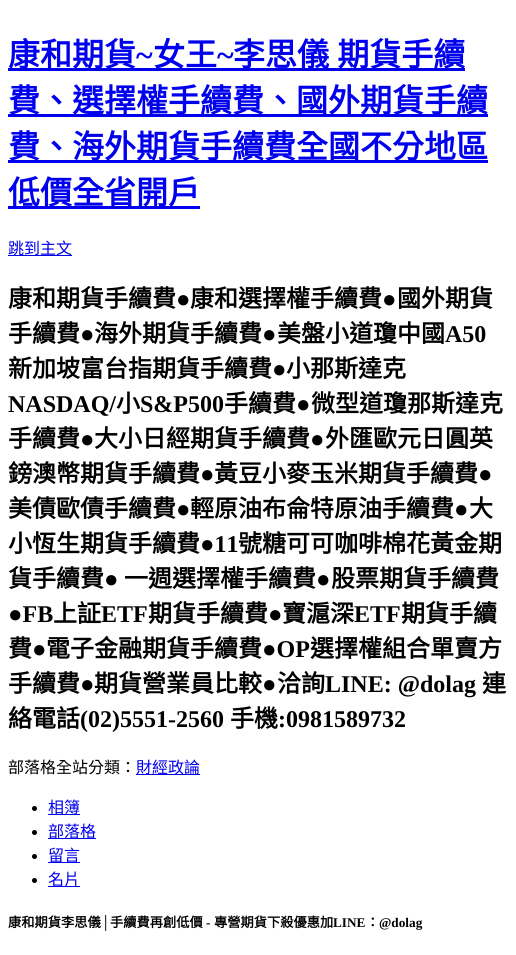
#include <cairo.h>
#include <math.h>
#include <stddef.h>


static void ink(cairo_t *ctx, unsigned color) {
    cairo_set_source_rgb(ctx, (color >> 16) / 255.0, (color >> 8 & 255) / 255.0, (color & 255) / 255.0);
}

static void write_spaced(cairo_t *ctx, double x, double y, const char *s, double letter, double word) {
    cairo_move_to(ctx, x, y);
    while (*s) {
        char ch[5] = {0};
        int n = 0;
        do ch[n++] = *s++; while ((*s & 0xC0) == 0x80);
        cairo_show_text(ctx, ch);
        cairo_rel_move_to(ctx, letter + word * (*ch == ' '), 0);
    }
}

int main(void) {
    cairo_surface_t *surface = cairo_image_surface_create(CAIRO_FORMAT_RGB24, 516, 955);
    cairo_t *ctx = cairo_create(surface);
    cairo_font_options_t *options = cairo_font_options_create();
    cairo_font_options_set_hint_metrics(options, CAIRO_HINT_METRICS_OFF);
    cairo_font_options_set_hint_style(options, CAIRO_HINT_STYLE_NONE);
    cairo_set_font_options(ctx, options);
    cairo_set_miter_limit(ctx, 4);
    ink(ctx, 0xFFFFFF);
    cairo_paint(ctx);
    ink(ctx, 0x0000EE);
    cairo_rectangle(ctx, 8, 68, 457, 3);
    cairo_fill(ctx);
    cairo_select_font_face(ctx, "Noto Sans CJK TC", CAIRO_FONT_SLANT_NORMAL, CAIRO_FONT_WEIGHT_BOLD);
    cairo_set_font_size(ctx, 32);
    cairo_move_to(ctx, 8, 66);
    cairo_show_text(ctx, "康和期貨");
    cairo_select_font_face(ctx, "Liberation Serif", CAIRO_FONT_SLANT_NORMAL, CAIRO_FONT_WEIGHT_BOLD);
    cairo_move_to(ctx, 136, 66);
    cairo_show_text(ctx, "~");
    cairo_select_font_face(ctx, "Noto Sans CJK TC", CAIRO_FONT_SLANT_NORMAL, CAIRO_FONT_WEIGHT_BOLD);
    cairo_move_to(ctx, 153, 66);
    cairo_show_text(ctx, "女王");
    cairo_select_font_face(ctx, "Liberation Serif", CAIRO_FONT_SLANT_NORMAL, CAIRO_FONT_WEIGHT_BOLD);
    cairo_move_to(ctx, 217, 66);
    cairo_show_text(ctx, "~");
    cairo_select_font_face(ctx, "Noto Sans CJK TC", CAIRO_FONT_SLANT_NORMAL, CAIRO_FONT_WEIGHT_BOLD);
    write_spaced(ctx, 233, 66, "李思儀 期貨手續", 0, 1);
    cairo_rectangle(ctx, 8, 114, 480, 3);
    cairo_fill(ctx);
    cairo_move_to(ctx, 8, 112);
    cairo_show_text(ctx, "費、選擇權手續費、國外期貨手續");
    cairo_rectangle(ctx, 8, 160, 480, 3);
    cairo_fill(ctx);
    cairo_move_to(ctx, 8, 158);
    cairo_show_text(ctx, "費、海外期貨手續費全國不分地區");
    cairo_rectangle(ctx, 8, 206, 192, 3);
    cairo_fill(ctx);
    cairo_move_to(ctx, 8, 204);
    cairo_show_text(ctx, "低價全省開戶");
    cairo_rectangle(ctx, 8, 255, 64, 1);
    cairo_fill(ctx);
    cairo_select_font_face(ctx, "Noto Sans CJK TC", CAIRO_FONT_SLANT_NORMAL, CAIRO_FONT_WEIGHT_NORMAL);
    cairo_set_font_size(ctx, 16);
    cairo_move_to(ctx, 8, 254);
    cairo_show_text(ctx, "跳到主文");
    cairo_select_font_face(ctx, "Noto Sans CJK TC", CAIRO_FONT_SLANT_NORMAL, CAIRO_FONT_WEIGHT_BOLD);
    cairo_set_font_size(ctx, 24);
    ink(ctx, 0x000000);
    cairo_move_to(ctx, 8, 307);
    cairo_show_text(ctx, "康和期貨手續費");
    cairo_select_font_face(ctx, "Liberation Serif", CAIRO_FONT_SLANT_NORMAL, CAIRO_FONT_WEIGHT_BOLD);
    cairo_move_to(ctx, 176, 307);
    cairo_show_text(ctx, "●");
    cairo_select_font_face(ctx, "Noto Sans CJK TC", CAIRO_FONT_SLANT_NORMAL, CAIRO_FONT_WEIGHT_BOLD);
    cairo_move_to(ctx, 190, 307);
    cairo_show_text(ctx, "康和選擇權手續費");
    cairo_select_font_face(ctx, "Liberation Serif", CAIRO_FONT_SLANT_NORMAL, CAIRO_FONT_WEIGHT_BOLD);
    cairo_move_to(ctx, 382, 307);
    cairo_show_text(ctx, "●");
    cairo_select_font_face(ctx, "Noto Sans CJK TC", CAIRO_FONT_SLANT_NORMAL, CAIRO_FONT_WEIGHT_BOLD);
    cairo_move_to(ctx, 397, 307);
    cairo_show_text(ctx, "國外期貨");
    cairo_move_to(ctx, 8, 342);
    cairo_show_text(ctx, "手續費");
    cairo_select_font_face(ctx, "Liberation Serif", CAIRO_FONT_SLANT_NORMAL, CAIRO_FONT_WEIGHT_BOLD);
    cairo_move_to(ctx, 80, 342);
    cairo_show_text(ctx, "●");
    cairo_select_font_face(ctx, "Noto Sans CJK TC", CAIRO_FONT_SLANT_NORMAL, CAIRO_FONT_WEIGHT_BOLD);
    cairo_move_to(ctx, 94, 342);
    cairo_show_text(ctx, "海外期貨手續費");
    cairo_select_font_face(ctx, "Liberation Serif", CAIRO_FONT_SLANT_NORMAL, CAIRO_FONT_WEIGHT_BOLD);
    cairo_move_to(ctx, 262, 342);
    cairo_show_text(ctx, "●");
    cairo_select_font_face(ctx, "Noto Sans CJK TC", CAIRO_FONT_SLANT_NORMAL, CAIRO_FONT_WEIGHT_BOLD);
    cairo_move_to(ctx, 277, 342);
    cairo_show_text(ctx, "美盤小道瓊中國");
    cairo_select_font_face(ctx, "Liberation Serif", CAIRO_FONT_SLANT_NORMAL, CAIRO_FONT_WEIGHT_BOLD);
    cairo_move_to(ctx, 445, 342);
    cairo_show_text(ctx, "A50");
    cairo_select_font_face(ctx, "Noto Sans CJK TC", CAIRO_FONT_SLANT_NORMAL, CAIRO_FONT_WEIGHT_BOLD);
    cairo_move_to(ctx, 8, 377);
    cairo_show_text(ctx, "新加坡富台指期貨手續費");
    cairo_select_font_face(ctx, "Liberation Serif", CAIRO_FONT_SLANT_NORMAL, CAIRO_FONT_WEIGHT_BOLD);
    cairo_move_to(ctx, 272, 377);
    cairo_show_text(ctx, "●");
    cairo_select_font_face(ctx, "Noto Sans CJK TC", CAIRO_FONT_SLANT_NORMAL, CAIRO_FONT_WEIGHT_BOLD);
    cairo_move_to(ctx, 286, 377);
    cairo_show_text(ctx, "小那斯達克");
    cairo_select_font_face(ctx, "Liberation Serif", CAIRO_FONT_SLANT_NORMAL, CAIRO_FONT_WEIGHT_BOLD);
    cairo_move_to(ctx, 8, 412);
    cairo_show_text(ctx, "NASDAQ/");
    cairo_select_font_face(ctx, "Noto Sans CJK TC", CAIRO_FONT_SLANT_NORMAL, CAIRO_FONT_WEIGHT_BOLD);
    cairo_move_to(ctx, 116, 412);
    cairo_show_text(ctx, "小");
    cairo_select_font_face(ctx, "Liberation Serif", CAIRO_FONT_SLANT_NORMAL, CAIRO_FONT_WEIGHT_BOLD);
    cairo_move_to(ctx, 140, 412);
    cairo_show_text(ctx, "S&P500");
    cairo_select_font_face(ctx, "Noto Sans CJK TC", CAIRO_FONT_SLANT_NORMAL, CAIRO_FONT_WEIGHT_BOLD);
    cairo_move_to(ctx, 224, 412);
    cairo_show_text(ctx, "手續費");
    cairo_select_font_face(ctx, "Liberation Serif", CAIRO_FONT_SLANT_NORMAL, CAIRO_FONT_WEIGHT_BOLD);
    cairo_move_to(ctx, 296, 412);
    cairo_show_text(ctx, "●");
    cairo_select_font_face(ctx, "Noto Sans CJK TC", CAIRO_FONT_SLANT_NORMAL, CAIRO_FONT_WEIGHT_BOLD);
    cairo_move_to(ctx, 311, 412);
    cairo_show_text(ctx, "微型道瓊那斯達克");
    cairo_move_to(ctx, 8, 447);
    cairo_show_text(ctx, "手續費");
    cairo_select_font_face(ctx, "Liberation Serif", CAIRO_FONT_SLANT_NORMAL, CAIRO_FONT_WEIGHT_BOLD);
    cairo_move_to(ctx, 80, 447);
    cairo_show_text(ctx, "●");
    cairo_select_font_face(ctx, "Noto Sans CJK TC", CAIRO_FONT_SLANT_NORMAL, CAIRO_FONT_WEIGHT_BOLD);
    cairo_move_to(ctx, 94, 447);
    cairo_show_text(ctx, "大小日經期貨手續費");
    cairo_select_font_face(ctx, "Liberation Serif", CAIRO_FONT_SLANT_NORMAL, CAIRO_FONT_WEIGHT_BOLD);
    cairo_move_to(ctx, 310, 447);
    cairo_show_text(ctx, "●");
    cairo_select_font_face(ctx, "Noto Sans CJK TC", CAIRO_FONT_SLANT_NORMAL, CAIRO_FONT_WEIGHT_BOLD);
    cairo_move_to(ctx, 325, 447);
    cairo_show_text(ctx, "外匯歐元日圓英");
    cairo_move_to(ctx, 8, 482);
    cairo_show_text(ctx, "鎊澳幣期貨手續費");
    cairo_select_font_face(ctx, "Liberation Serif", CAIRO_FONT_SLANT_NORMAL, CAIRO_FONT_WEIGHT_BOLD);
    cairo_move_to(ctx, 200, 482);
    cairo_show_text(ctx, "●");
    cairo_select_font_face(ctx, "Noto Sans CJK TC", CAIRO_FONT_SLANT_NORMAL, CAIRO_FONT_WEIGHT_BOLD);
    cairo_move_to(ctx, 214, 482);
    cairo_show_text(ctx, "黃豆小麥玉米期貨手續費");
    cairo_select_font_face(ctx, "Liberation Serif", CAIRO_FONT_SLANT_NORMAL, CAIRO_FONT_WEIGHT_BOLD);
    cairo_move_to(ctx, 478, 482);
    cairo_show_text(ctx, "●");
    cairo_select_font_face(ctx, "Noto Sans CJK TC", CAIRO_FONT_SLANT_NORMAL, CAIRO_FONT_WEIGHT_BOLD);
    cairo_move_to(ctx, 8, 517);
    cairo_show_text(ctx, "美債歐債手續費");
    cairo_select_font_face(ctx, "Liberation Serif", CAIRO_FONT_SLANT_NORMAL, CAIRO_FONT_WEIGHT_BOLD);
    cairo_move_to(ctx, 176, 517);
    cairo_show_text(ctx, "●");
    cairo_select_font_face(ctx, "Noto Sans CJK TC", CAIRO_FONT_SLANT_NORMAL, CAIRO_FONT_WEIGHT_BOLD);
    cairo_move_to(ctx, 190, 517);
    cairo_show_text(ctx, "輕原油布侖特原油手續費");
    cairo_select_font_face(ctx, "Liberation Serif", CAIRO_FONT_SLANT_NORMAL, CAIRO_FONT_WEIGHT_BOLD);
    cairo_move_to(ctx, 454, 517);
    cairo_show_text(ctx, "●");
    cairo_select_font_face(ctx, "Noto Sans CJK TC", CAIRO_FONT_SLANT_NORMAL, CAIRO_FONT_WEIGHT_BOLD);
    cairo_move_to(ctx, 469, 517);
    cairo_show_text(ctx, "大");
    cairo_move_to(ctx, 8, 552);
    cairo_show_text(ctx, "小恆生期貨手續費");
    cairo_select_font_face(ctx, "Liberation Serif", CAIRO_FONT_SLANT_NORMAL, CAIRO_FONT_WEIGHT_BOLD);
    cairo_move_to(ctx, 200, 552);
    cairo_show_text(ctx, "●11");
    cairo_select_font_face(ctx, "Noto Sans CJK TC", CAIRO_FONT_SLANT_NORMAL, CAIRO_FONT_WEIGHT_BOLD);
    cairo_move_to(ctx, 238, 552);
    cairo_show_text(ctx, "號糖可可咖啡棉花黃金期");
    cairo_move_to(ctx, 8, 587);
    cairo_show_text(ctx, "貨手續費");
    cairo_select_font_face(ctx, "Liberation Serif", CAIRO_FONT_SLANT_NORMAL, CAIRO_FONT_WEIGHT_BOLD);
    cairo_move_to(ctx, 104, 587);
    cairo_show_text(ctx, "●");
    cairo_select_font_face(ctx, "Noto Sans CJK TC", CAIRO_FONT_SLANT_NORMAL, CAIRO_FONT_WEIGHT_BOLD);
    cairo_move_to(ctx, 124, 587);
    cairo_show_text(ctx, "一週選擇權手續費");
    cairo_select_font_face(ctx, "Liberation Serif", CAIRO_FONT_SLANT_NORMAL, CAIRO_FONT_WEIGHT_BOLD);
    cairo_move_to(ctx, 316, 587);
    cairo_show_text(ctx, "●");
    cairo_select_font_face(ctx, "Noto Sans CJK TC", CAIRO_FONT_SLANT_NORMAL, CAIRO_FONT_WEIGHT_BOLD);
    cairo_move_to(ctx, 331, 587);
    cairo_show_text(ctx, "股票期貨手續費");
    cairo_select_font_face(ctx, "Liberation Serif", CAIRO_FONT_SLANT_NORMAL, CAIRO_FONT_WEIGHT_BOLD);
    cairo_move_to(ctx, 8, 622);
    cairo_show_text(ctx, "●FB");
    cairo_select_font_face(ctx, "Noto Sans CJK TC", CAIRO_FONT_SLANT_NORMAL, CAIRO_FONT_WEIGHT_BOLD);
    cairo_move_to(ctx, 53, 622);
    cairo_show_text(ctx, "上証");
    cairo_select_font_face(ctx, "Liberation Serif", CAIRO_FONT_SLANT_NORMAL, CAIRO_FONT_WEIGHT_BOLD);
    cairo_move_to(ctx, 101, 622);
    cairo_show_text(ctx, "ETF");
    cairo_select_font_face(ctx, "Noto Sans CJK TC", CAIRO_FONT_SLANT_NORMAL, CAIRO_FONT_WEIGHT_BOLD);
    cairo_move_to(ctx, 148, 622);
    cairo_show_text(ctx, "期貨手續費");
    cairo_select_font_face(ctx, "Liberation Serif", CAIRO_FONT_SLANT_NORMAL, CAIRO_FONT_WEIGHT_BOLD);
    cairo_move_to(ctx, 268, 622);
    cairo_show_text(ctx, "●");
    cairo_select_font_face(ctx, "Noto Sans CJK TC", CAIRO_FONT_SLANT_NORMAL, CAIRO_FONT_WEIGHT_BOLD);
    cairo_move_to(ctx, 282, 622);
    cairo_show_text(ctx, "寶滬深");
    cairo_select_font_face(ctx, "Liberation Serif", CAIRO_FONT_SLANT_NORMAL, CAIRO_FONT_WEIGHT_BOLD);
    cairo_move_to(ctx, 354, 622);
    cairo_show_text(ctx, "ETF");
    cairo_select_font_face(ctx, "Noto Sans CJK TC", CAIRO_FONT_SLANT_NORMAL, CAIRO_FONT_WEIGHT_BOLD);
    cairo_move_to(ctx, 401, 622);
    cairo_show_text(ctx, "期貨手續");
    cairo_move_to(ctx, 8, 657);
    cairo_show_text(ctx, "費");
    cairo_select_font_face(ctx, "Liberation Serif", CAIRO_FONT_SLANT_NORMAL, CAIRO_FONT_WEIGHT_BOLD);
    cairo_move_to(ctx, 32, 657);
    cairo_show_text(ctx, "●");
    cairo_select_font_face(ctx, "Noto Sans CJK TC", CAIRO_FONT_SLANT_NORMAL, CAIRO_FONT_WEIGHT_BOLD);
    cairo_move_to(ctx, 46, 657);
    cairo_show_text(ctx, "電子金融期貨手續費");
    cairo_select_font_face(ctx, "Liberation Serif", CAIRO_FONT_SLANT_NORMAL, CAIRO_FONT_WEIGHT_BOLD);
    cairo_move_to(ctx, 262, 657);
    cairo_show_text(ctx, "●OP");
    cairo_select_font_face(ctx, "Noto Sans CJK TC", CAIRO_FONT_SLANT_NORMAL, CAIRO_FONT_WEIGHT_BOLD);
    cairo_move_to(ctx, 310, 657);
    cairo_show_text(ctx, "選擇權組合單賣方");
    cairo_move_to(ctx, 8, 692);
    cairo_show_text(ctx, "手續費");
    cairo_select_font_face(ctx, "Liberation Serif", CAIRO_FONT_SLANT_NORMAL, CAIRO_FONT_WEIGHT_BOLD);
    cairo_move_to(ctx, 80, 692);
    cairo_show_text(ctx, "●");
    cairo_select_font_face(ctx, "Noto Sans CJK TC", CAIRO_FONT_SLANT_NORMAL, CAIRO_FONT_WEIGHT_BOLD);
    cairo_move_to(ctx, 94, 692);
    cairo_show_text(ctx, "期貨營業員比較");
    cairo_select_font_face(ctx, "Liberation Serif", CAIRO_FONT_SLANT_NORMAL, CAIRO_FONT_WEIGHT_BOLD);
    cairo_move_to(ctx, 262, 692);
    cairo_show_text(ctx, "●");
    cairo_select_font_face(ctx, "Noto Sans CJK TC", CAIRO_FONT_SLANT_NORMAL, CAIRO_FONT_WEIGHT_BOLD);
    cairo_move_to(ctx, 277, 692);
    cairo_show_text(ctx, "洽詢");
    cairo_select_font_face(ctx, "Liberation Serif", CAIRO_FONT_SLANT_NORMAL, CAIRO_FONT_WEIGHT_BOLD);
    cairo_move_to(ctx, 325, 692);
    cairo_show_text(ctx, "LINE: @dolag");
    cairo_select_font_face(ctx, "Noto Sans CJK TC", CAIRO_FONT_SLANT_NORMAL, CAIRO_FONT_WEIGHT_BOLD);
    cairo_move_to(ctx, 482, 692);
    cairo_show_text(ctx, "連");
    cairo_move_to(ctx, 8, 727);
    cairo_show_text(ctx, "絡電話");
    cairo_select_font_face(ctx, "Liberation Serif", CAIRO_FONT_SLANT_NORMAL, CAIRO_FONT_WEIGHT_BOLD);
    cairo_move_to(ctx, 80, 727);
    cairo_show_text(ctx, "(02)5551-2560");
    cairo_select_font_face(ctx, "Noto Sans CJK TC", CAIRO_FONT_SLANT_NORMAL, CAIRO_FONT_WEIGHT_BOLD);
    cairo_move_to(ctx, 230, 727);
    cairo_show_text(ctx, "手機");
    cairo_select_font_face(ctx, "Liberation Serif", CAIRO_FONT_SLANT_NORMAL, CAIRO_FONT_WEIGHT_BOLD);
    cairo_move_to(ctx, 278, 727);
    cairo_show_text(ctx, ":0981589732");
    cairo_select_font_face(ctx, "Noto Sans CJK TC", CAIRO_FONT_SLANT_NORMAL, CAIRO_FONT_WEIGHT_NORMAL);
    cairo_set_font_size(ctx, 16);
    cairo_move_to(ctx, 8, 773);
    cairo_show_text(ctx, "部落格全站分類：");
    ink(ctx, 0x0000EE);
    cairo_rectangle(ctx, 136, 774, 64, 1);
    cairo_fill(ctx);
    cairo_move_to(ctx, 136, 773);
    cairo_show_text(ctx, "財經政論");
    ink(ctx, 0x000000);
    cairo_new_path(ctx);
    cairo_arc(ctx, 34.5, 808.5, 2.5, 0, 2 * M_PI);
    cairo_fill(ctx);
    ink(ctx, 0x0000EE);
    cairo_rectangle(ctx, 48, 814, 32, 1);
    cairo_fill(ctx);
    cairo_move_to(ctx, 48, 813);
    cairo_show_text(ctx, "相簿");
    ink(ctx, 0x000000);
    cairo_new_path(ctx);
    cairo_arc(ctx, 34.5, 832.5, 2.5, 0, 2 * M_PI);
    cairo_fill(ctx);
    ink(ctx, 0x0000EE);
    cairo_rectangle(ctx, 48, 838, 48, 1);
    cairo_fill(ctx);
    cairo_move_to(ctx, 48, 837);
    cairo_show_text(ctx, "部落格");
    ink(ctx, 0x000000);
    cairo_new_path(ctx);
    cairo_arc(ctx, 34.5, 856.5, 2.5, 0, 2 * M_PI);
    cairo_fill(ctx);
    ink(ctx, 0x0000EE);
    cairo_rectangle(ctx, 48, 862, 32, 1);
    cairo_fill(ctx);
    cairo_move_to(ctx, 48, 861);
    cairo_show_text(ctx, "留言");
    ink(ctx, 0x000000);
    cairo_new_path(ctx);
    cairo_arc(ctx, 34.5, 880.5, 2.5, 0, 2 * M_PI);
    cairo_fill(ctx);
    ink(ctx, 0x0000EE);
    cairo_rectangle(ctx, 48, 886, 32, 1);
    cairo_fill(ctx);
    cairo_move_to(ctx, 48, 885);
    cairo_show_text(ctx, "名片");
    cairo_select_font_face(ctx, "Noto Sans CJK TC", CAIRO_FONT_SLANT_NORMAL, CAIRO_FONT_WEIGHT_BOLD);
    cairo_set_font_size(ctx, 13.25);
    ink(ctx, 0x000000);
    cairo_move_to(ctx, 8, 927);
    cairo_show_text(ctx, "康和期貨李思儀");
    cairo_select_font_face(ctx, "Liberation Serif", CAIRO_FONT_SLANT_NORMAL, CAIRO_FONT_WEIGHT_BOLD);
    cairo_move_to(ctx, 101, 927);
    cairo_show_text(ctx, "│");
    cairo_select_font_face(ctx, "Noto Sans CJK TC", CAIRO_FONT_SLANT_NORMAL, CAIRO_FONT_WEIGHT_BOLD);
    cairo_move_to(ctx, 110, 927);
    cairo_show_text(ctx, "手續費再創低價");
    cairo_select_font_face(ctx, "Liberation Serif", CAIRO_FONT_SLANT_NORMAL, CAIRO_FONT_WEIGHT_BOLD);
    cairo_move_to(ctx, 206, 927);
    cairo_show_text(ctx, "-");
    cairo_select_font_face(ctx, "Noto Sans CJK TC", CAIRO_FONT_SLANT_NORMAL, CAIRO_FONT_WEIGHT_BOLD);
    cairo_move_to(ctx, 214, 927);
    cairo_show_text(ctx, "專營期貨下殺優惠加");
    cairo_select_font_face(ctx, "Liberation Serif", CAIRO_FONT_SLANT_NORMAL, CAIRO_FONT_WEIGHT_BOLD);
    cairo_move_to(ctx, 333, 927);
    cairo_show_text(ctx, "LINE");
    cairo_select_font_face(ctx, "Noto Sans CJK TC", CAIRO_FONT_SLANT_NORMAL, CAIRO_FONT_WEIGHT_BOLD);
    cairo_move_to(ctx, 366, 927);
    cairo_show_text(ctx, "：");
    cairo_select_font_face(ctx, "Liberation Serif", CAIRO_FONT_SLANT_NORMAL, CAIRO_FONT_WEIGHT_BOLD);
    cairo_move_to(ctx, 379, 927);
    cairo_show_text(ctx, "@dolag");
    cairo_surface_write_to_png(surface, "image.png");
    cairo_font_options_destroy(options);
    cairo_destroy(ctx);
    cairo_surface_destroy(surface);
    return 0;
}
